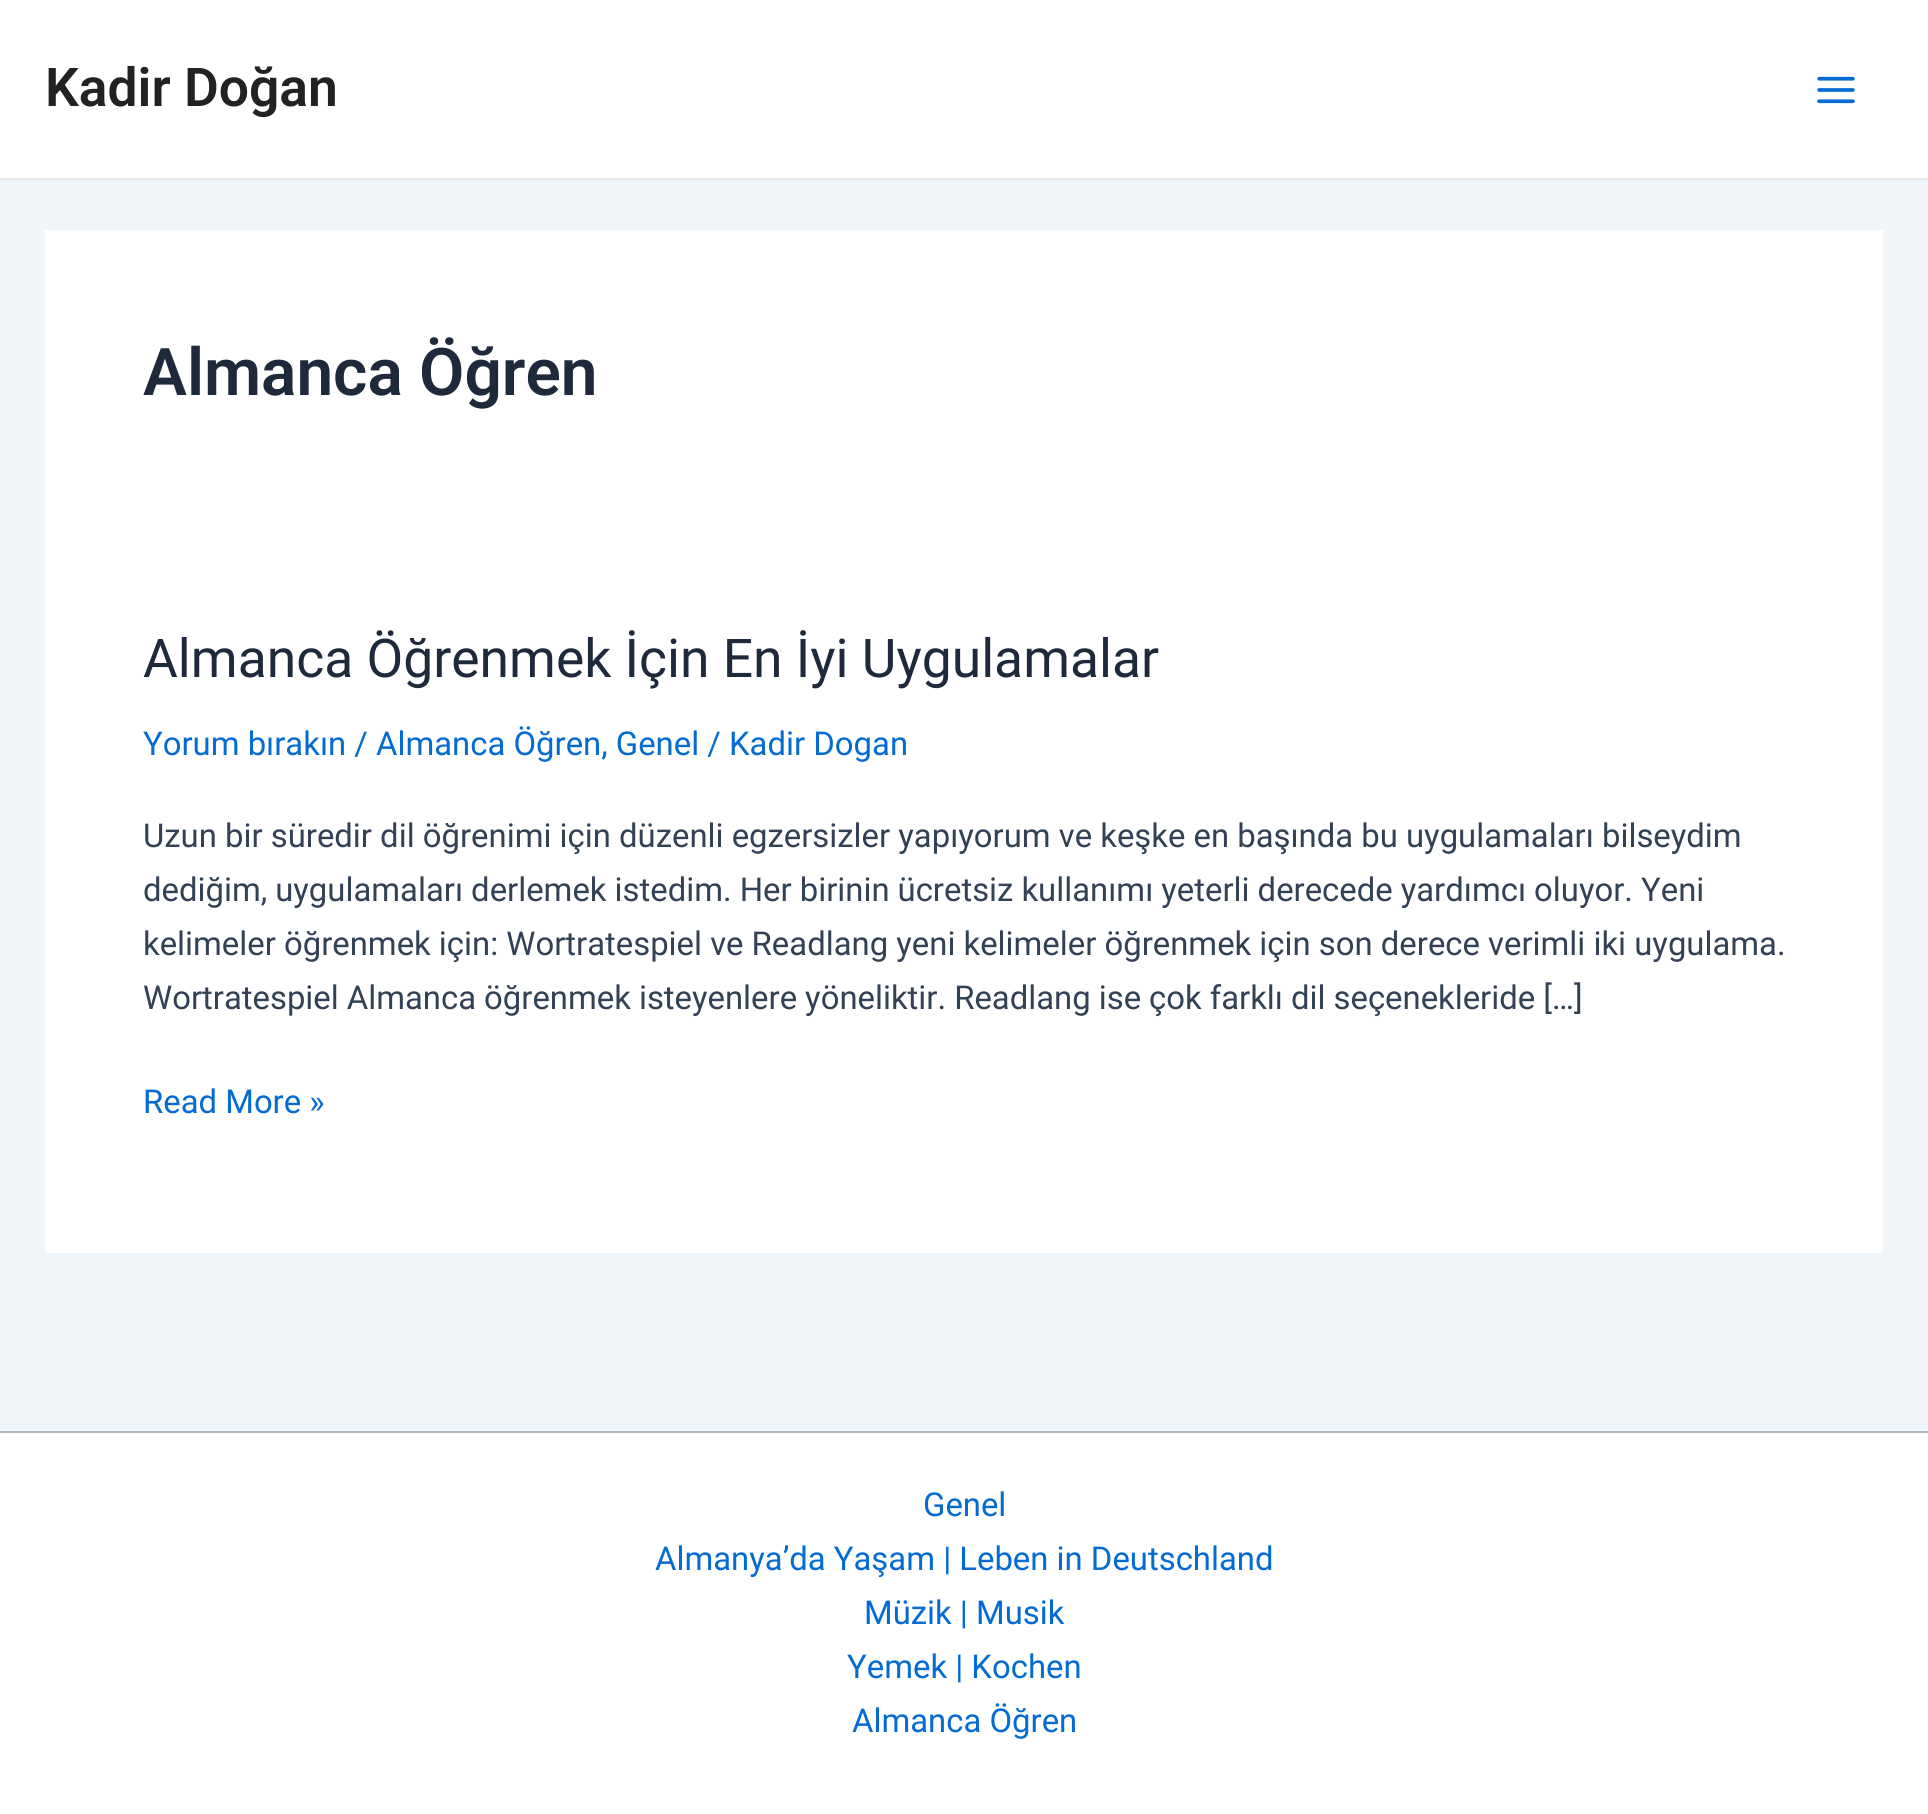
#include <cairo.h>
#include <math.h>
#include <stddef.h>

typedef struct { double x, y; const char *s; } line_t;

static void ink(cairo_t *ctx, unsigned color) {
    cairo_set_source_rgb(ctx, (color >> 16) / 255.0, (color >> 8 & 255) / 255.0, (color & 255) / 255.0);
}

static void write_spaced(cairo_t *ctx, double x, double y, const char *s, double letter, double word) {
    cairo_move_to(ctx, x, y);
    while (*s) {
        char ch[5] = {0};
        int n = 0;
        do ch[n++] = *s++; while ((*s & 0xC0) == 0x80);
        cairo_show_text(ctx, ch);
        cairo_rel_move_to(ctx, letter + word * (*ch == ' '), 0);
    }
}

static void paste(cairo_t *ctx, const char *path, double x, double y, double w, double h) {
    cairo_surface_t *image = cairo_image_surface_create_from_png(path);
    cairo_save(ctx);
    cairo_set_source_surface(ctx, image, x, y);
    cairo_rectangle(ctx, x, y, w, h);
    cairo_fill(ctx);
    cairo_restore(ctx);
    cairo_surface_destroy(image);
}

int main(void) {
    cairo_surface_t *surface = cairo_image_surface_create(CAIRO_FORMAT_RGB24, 1928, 1814);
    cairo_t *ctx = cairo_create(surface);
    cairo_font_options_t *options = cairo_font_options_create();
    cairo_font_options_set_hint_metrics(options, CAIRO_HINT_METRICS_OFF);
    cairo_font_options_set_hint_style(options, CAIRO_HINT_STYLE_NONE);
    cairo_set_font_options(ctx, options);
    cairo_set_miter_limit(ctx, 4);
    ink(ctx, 0xF0F5FA);
    cairo_paint(ctx);
    ink(ctx, 0xFFFFFF);
    cairo_rectangle(ctx, 0, 0, 1928, 178);
    cairo_fill(ctx);
    ink(ctx, 0xEAEAEA);
    cairo_rectangle(ctx, 0, 178, 1928, 2);
    cairo_fill(ctx);
    cairo_select_font_face(ctx, "Roboto SemiBold", CAIRO_FONT_SLANT_NORMAL, CAIRO_FONT_WEIGHT_NORMAL);
    cairo_set_font_size(ctx, 53.4);
    ink(ctx, 0x222222);
    cairo_move_to(ctx, 45, 106);
    cairo_show_text(ctx, "Kadir Doğan");
    paste(ctx, "media/1.png", 1817, 76, 38, 28);
    ink(ctx, 0xFFFFFF);
    cairo_rectangle(ctx, 45, 230, 1838, 1023);
    cairo_fill(ctx);
    cairo_set_font_size(ctx, 65.75);
    ink(ctx, 0x1E293B);
    cairo_move_to(ctx, 143, 395);
    cairo_show_text(ctx, "Almanca Öğren");
    cairo_select_font_face(ctx, "Roboto", CAIRO_FONT_SLANT_NORMAL, CAIRO_FONT_WEIGHT_NORMAL);
    cairo_set_font_size(ctx, 53.4);
    cairo_move_to(ctx, 143, 677);
    cairo_show_text(ctx, "Almanca Öğrenmek İçin En İyi Uygulamalar");
    cairo_set_font_size(ctx, 32.85);
    ink(ctx, 0x046BD2);
    cairo_move_to(ctx, 143, 755);
    cairo_show_text(ctx, "Yorum bırakın / Almanca Öğren, Genel / Kadir Dogan");
    ink(ctx, 0x334155);
    cairo_move_to(ctx, 143, 847);
    cairo_show_text(ctx, "Uzun bir süredir dil öğrenimi için düzenli egzersizler yapıyorum ve keşke en başında bu uygulamaları bilseydim");
    write_spaced(ctx, 143, 901, "dediğim, uygulamaları derlemek istedim. Her birinin ücretsiz kullanımı yeterli derecede yardımcı oluyor. Yeni", 0, -0.1);
    cairo_move_to(ctx, 143, 955);
    cairo_show_text(ctx, "kelimeler öğrenmek için: Wortratespiel ve Readlang yeni kelimeler öğrenmek için son derece verimli iki uygulama.");
    write_spaced(ctx, 143, 1009, "Wortratespiel Almanca öğrenmek isteyenlere yöneliktir. Readlang ise çok farklı dil seçenekleride […]", 0, -0.1);
    ink(ctx, 0x046BD2);
    cairo_move_to(ctx, 143, 1113);
    cairo_show_text(ctx, "Read More »");
    ink(ctx, 0xFFFFFF);
    cairo_rectangle(ctx, 0, 1433, 1928, 381);
    cairo_fill(ctx);
    ink(ctx, 0xADB6BE);
    cairo_rectangle(ctx, 0, 1431, 1928, 2);
    cairo_fill(ctx);
    ink(ctx, 0x046BD2);
    {
        static const line_t items[] = {
            {923, 1516, "Genel"},
            {655, 1570, "Almanya’da Yaşam | Leben in Deutschland"},
            {864, 1624, "Müzik | Musik"},
            {847, 1678, "Yemek | Kochen"},
            {852, 1732, "Almanca Öğren"},
        };
        for (size_t i = 0; i < sizeof items / sizeof *items; i++) {
            cairo_move_to(ctx, items[i].x, items[i].y);
            cairo_show_text(ctx, items[i].s);
        }
    }
    cairo_surface_write_to_png(surface, "image.png");
    cairo_font_options_destroy(options);
    cairo_destroy(ctx);
    cairo_surface_destroy(surface);
    return 0;
}
